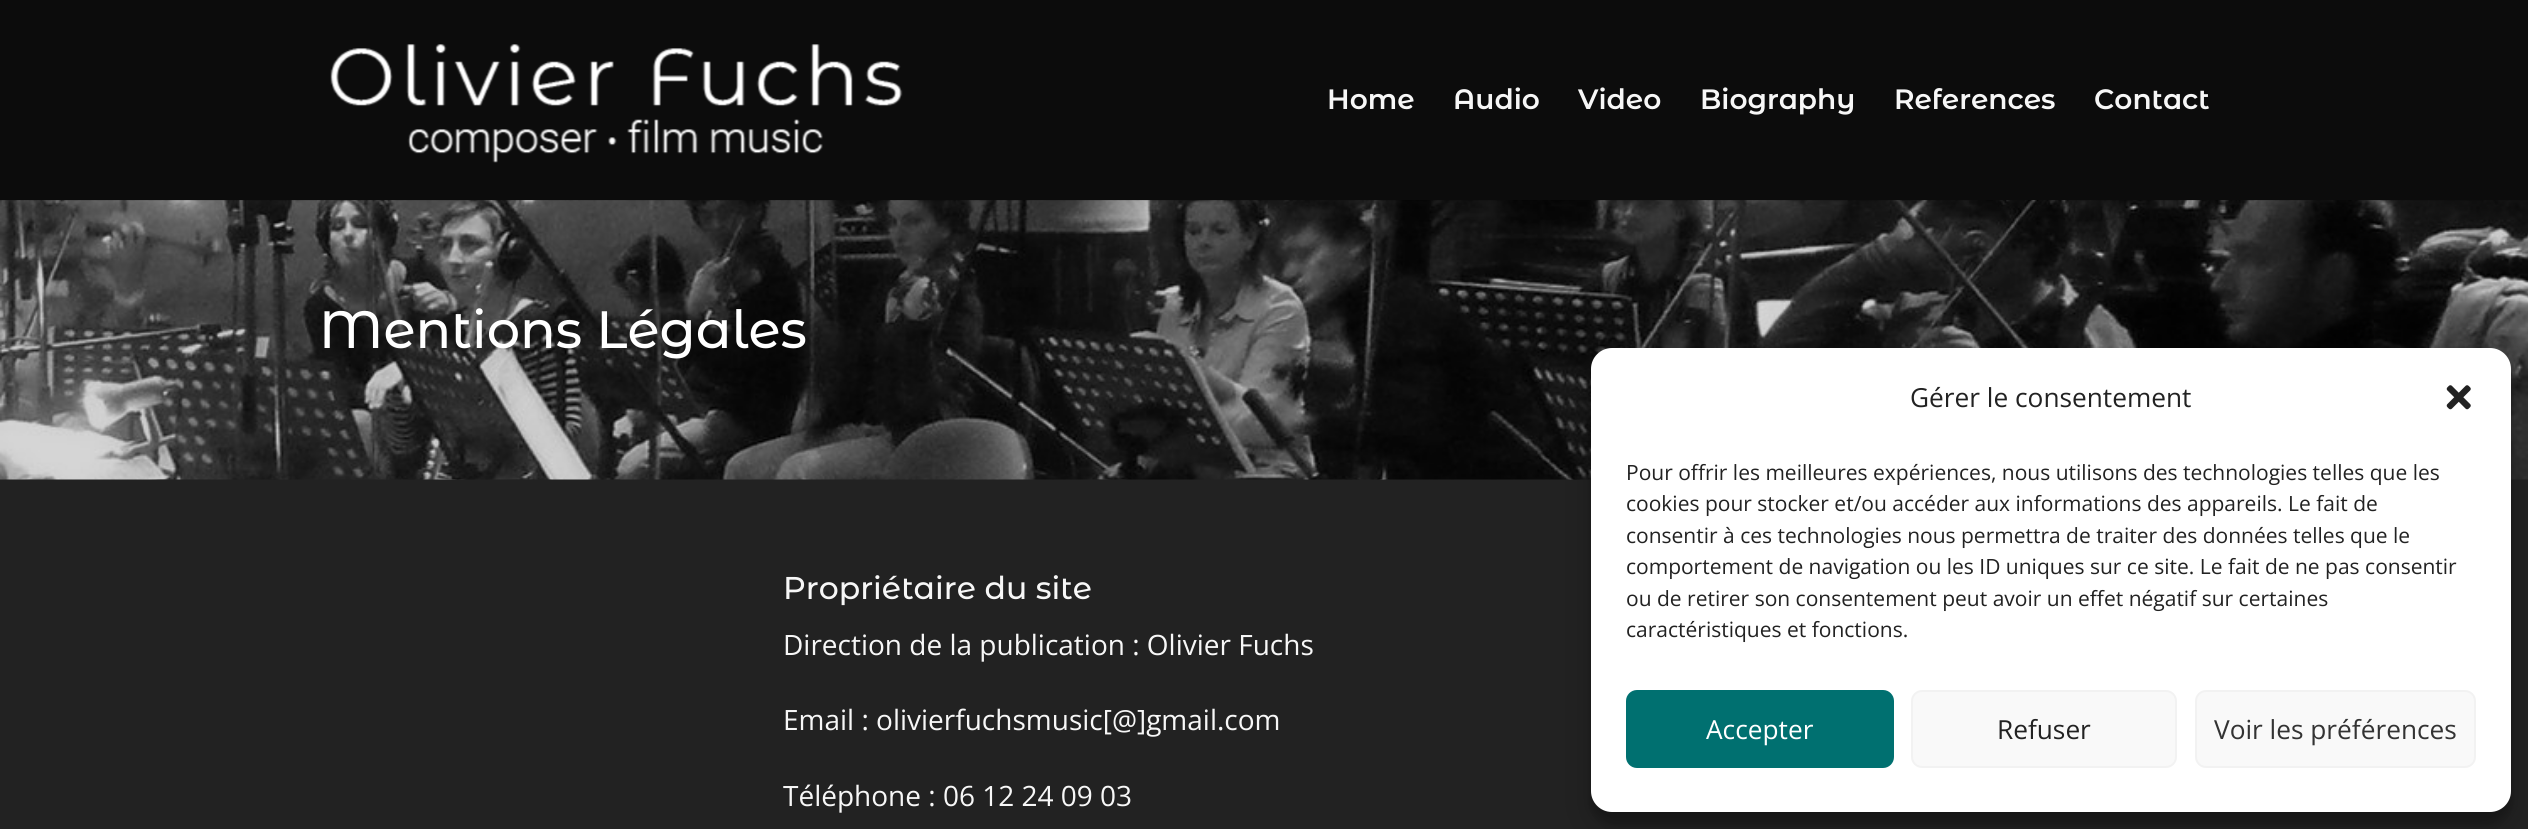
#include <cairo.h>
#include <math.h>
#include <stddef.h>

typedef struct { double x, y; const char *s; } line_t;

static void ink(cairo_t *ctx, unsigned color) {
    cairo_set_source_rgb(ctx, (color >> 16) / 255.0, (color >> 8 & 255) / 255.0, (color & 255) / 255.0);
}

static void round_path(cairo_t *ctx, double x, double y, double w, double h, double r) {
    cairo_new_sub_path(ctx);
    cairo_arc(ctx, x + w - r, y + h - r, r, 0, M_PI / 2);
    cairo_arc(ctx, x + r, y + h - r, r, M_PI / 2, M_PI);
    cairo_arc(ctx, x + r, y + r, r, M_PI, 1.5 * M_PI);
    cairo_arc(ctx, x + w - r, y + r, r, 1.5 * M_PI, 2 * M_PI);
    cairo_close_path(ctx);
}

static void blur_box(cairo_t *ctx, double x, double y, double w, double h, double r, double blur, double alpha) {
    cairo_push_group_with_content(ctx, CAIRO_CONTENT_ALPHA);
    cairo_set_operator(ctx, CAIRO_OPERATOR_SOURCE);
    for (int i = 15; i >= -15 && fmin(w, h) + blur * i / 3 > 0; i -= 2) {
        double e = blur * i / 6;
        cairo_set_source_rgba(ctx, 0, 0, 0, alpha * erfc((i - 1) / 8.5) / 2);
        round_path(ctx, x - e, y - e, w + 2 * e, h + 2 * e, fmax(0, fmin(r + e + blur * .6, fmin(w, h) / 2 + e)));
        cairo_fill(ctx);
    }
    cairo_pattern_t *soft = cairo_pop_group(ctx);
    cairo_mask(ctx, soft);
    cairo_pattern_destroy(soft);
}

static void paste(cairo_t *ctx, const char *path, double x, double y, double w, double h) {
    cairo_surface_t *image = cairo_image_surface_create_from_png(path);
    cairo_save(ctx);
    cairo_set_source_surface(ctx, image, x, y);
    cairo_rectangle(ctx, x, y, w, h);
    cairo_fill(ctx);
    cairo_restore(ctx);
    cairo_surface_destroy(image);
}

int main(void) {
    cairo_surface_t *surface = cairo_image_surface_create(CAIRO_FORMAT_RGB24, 2528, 829);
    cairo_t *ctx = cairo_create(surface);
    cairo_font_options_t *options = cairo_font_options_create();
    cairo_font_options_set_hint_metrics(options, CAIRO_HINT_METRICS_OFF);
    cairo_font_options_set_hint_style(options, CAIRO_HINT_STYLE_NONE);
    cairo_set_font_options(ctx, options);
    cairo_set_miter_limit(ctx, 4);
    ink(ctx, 0x222222);
    cairo_paint(ctx);
    paste(ctx, "media/2.png", 0, 200, 2528, 280);
    cairo_set_source_rgba(ctx, 0, 0, 0, 0.1);
    cairo_new_path(ctx);
    cairo_move_to(ctx, 0, 200);
    cairo_line_to(ctx, 0, 201);
    cairo_line_to(ctx, 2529, 201);
    cairo_line_to(ctx, 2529, 2);
    cairo_line_to(ctx, 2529, 200);
    cairo_close_path(ctx);
    cairo_fill(ctx);
    ink(ctx, 0x0C0C0C);
    cairo_rectangle(ctx, 0, 0, 2528, 200);
    cairo_fill(ctx);
    paste(ctx, "media/1.png", 330, 44, 573, 119);
    cairo_select_font_face(ctx, "Montserrat Alternates SemiBold", CAIRO_FONT_SLANT_NORMAL, CAIRO_FONT_WEIGHT_NORMAL);
    cairo_set_font_size(ctx, 28);
    ink(ctx, 0xF7F7F7);
    {
        static const line_t items[] = {
            {1327, 109, "Home"},
            {1453, 109, "Audio"},
            {1578, 109, "Video"},
            {1700, 109, "Biography"},
            {1894, 109, "References"},
            {2094, 109, "Contact"},
        };
        for (size_t i = 0; i < sizeof items / sizeof *items; i++) {
            cairo_move_to(ctx, items[i].x, items[i].y);
            cairo_show_text(ctx, items[i].s);
        }
    }
    cairo_select_font_face(ctx, "Montserrat Alternates Medium", CAIRO_FONT_SLANT_NORMAL, CAIRO_FONT_WEIGHT_NORMAL);
    cairo_set_font_size(ctx, 52.5);
    ink(ctx, 0xFFFFFF);
    cairo_move_to(ctx, 319, 348);
    cairo_show_text(ctx, "Mentions Légales");
    cairo_set_font_size(ctx, 31.5);
    ink(ctx, 0xF7F7F7);
    cairo_move_to(ctx, 783, 599);
    cairo_show_text(ctx, "Propriétaire du site");
    cairo_select_font_face(ctx, "Open Sans", CAIRO_FONT_SLANT_NORMAL, CAIRO_FONT_WEIGHT_NORMAL);
    cairo_set_font_size(ctx, 28);
    {
        static const line_t items[] = {
            {783, 655, "Direction de la publication : Olivier Fuchs"},
            {783, 730, "Email : olivierfuchsmusic[@]gmail.com"},
            {783, 806, "Téléphone : 06 12 24 09 03"},
        };
        for (size_t i = 0; i < sizeof items / sizeof *items; i++) {
            cairo_move_to(ctx, items[i].x, items[i].y);
            cairo_show_text(ctx, items[i].s);
        }
    }
    ink(ctx, 0x000000);
    blur_box(ctx, 1591, 359, 920, 464, 21, 5, 0.23);
    blur_box(ctx, 1591, 366, 920, 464, 21, 17.5, 0.19);
    ink(ctx, 0xFFFFFF);
    round_path(ctx, 1591, 348, 920, 464, 21);
    cairo_fill(ctx);
    cairo_set_font_size(ctx, 26.25);
    ink(ctx, 0x222222);
    cairo_move_to(ctx, 1910, 407);
    cairo_show_text(ctx, "Gérer le consentement");
    paste(ctx, "media/3.png", 2446, 385, 25, 25);
    cairo_set_font_size(ctx, 21);
    {
        static const line_t items[] = {
            {1626, 480, "Pour offrir les meilleures expériences, nous utilisons des technologies telles que les"},
            {1626, 511, "cookies pour stocker et/ou accéder aux informations des appareils. Le fait de"},
            {1626, 543, "consentir à ces technologies nous permettra de traiter des données telles que le"},
            {1626, 574, "comportement de navigation ou les ID uniques sur ce site. Le fait de ne pas consentir"},
            {1626, 606, "ou de retirer son consentement peut avoir un effet négatif sur certaines"},
            {1626, 637, "caractéristiques et fonctions."},
        };
        for (size_t i = 0; i < sizeof items / sizeof *items; i++) {
            cairo_move_to(ctx, items[i].x, items[i].y);
            cairo_show_text(ctx, items[i].s);
        }
    }
    ink(ctx, 0x007070);
    round_path(ctx, 1627, 691, 266, 76, 10);
    cairo_fill_preserve(ctx);
    cairo_stroke(ctx);
    cairo_set_font_size(ctx, 26.25);
    ink(ctx, 0xFFFFFF);
    cairo_move_to(ctx, 1706, 739);
    cairo_show_text(ctx, "Accepter");
    ink(ctx, 0xF9F9F9);
    round_path(ctx, 1912, 691, 264, 76, 10);
    cairo_fill_preserve(ctx);
    ink(ctx, 0xF2F2F2);
    cairo_stroke(ctx);
    ink(ctx, 0x222222);
    cairo_move_to(ctx, 1997, 739);
    cairo_show_text(ctx, "Refuser");
    ink(ctx, 0xF9F9F9);
    round_path(ctx, 2196, 691, 279, 76, 10);
    cairo_fill_preserve(ctx);
    ink(ctx, 0xF2F2F2);
    cairo_stroke(ctx);
    ink(ctx, 0x333333);
    cairo_move_to(ctx, 2214, 739);
    cairo_show_text(ctx, "Voir les préférences");
    cairo_surface_write_to_png(surface, "image.png");
    cairo_font_options_destroy(options);
    cairo_destroy(ctx);
    cairo_surface_destroy(surface);
    return 0;
}
